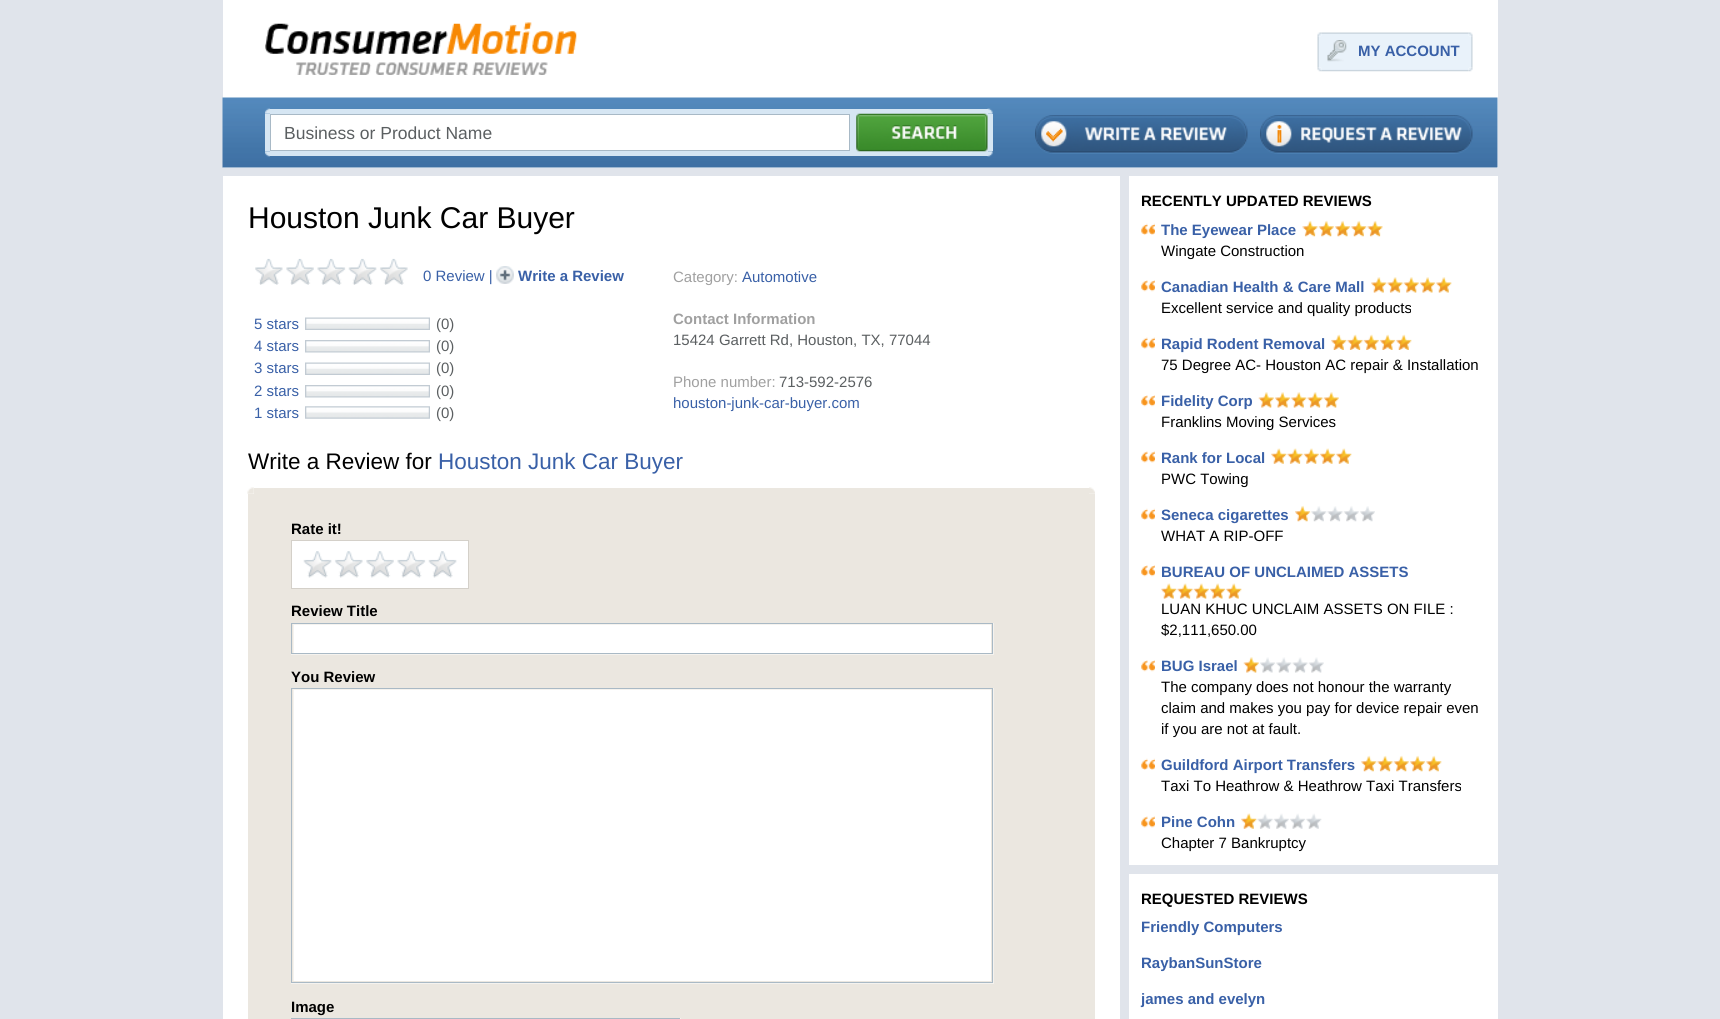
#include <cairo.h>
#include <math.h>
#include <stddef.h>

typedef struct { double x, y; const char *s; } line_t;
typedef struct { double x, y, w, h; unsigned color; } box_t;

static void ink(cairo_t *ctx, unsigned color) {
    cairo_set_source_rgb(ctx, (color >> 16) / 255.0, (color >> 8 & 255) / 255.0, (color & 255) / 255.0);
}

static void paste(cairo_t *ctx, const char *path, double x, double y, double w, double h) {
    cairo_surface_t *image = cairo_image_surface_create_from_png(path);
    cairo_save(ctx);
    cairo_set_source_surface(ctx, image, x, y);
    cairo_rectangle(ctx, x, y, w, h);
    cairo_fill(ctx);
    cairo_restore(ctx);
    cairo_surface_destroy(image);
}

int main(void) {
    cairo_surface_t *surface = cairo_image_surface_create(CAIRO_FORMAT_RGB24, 1720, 1019);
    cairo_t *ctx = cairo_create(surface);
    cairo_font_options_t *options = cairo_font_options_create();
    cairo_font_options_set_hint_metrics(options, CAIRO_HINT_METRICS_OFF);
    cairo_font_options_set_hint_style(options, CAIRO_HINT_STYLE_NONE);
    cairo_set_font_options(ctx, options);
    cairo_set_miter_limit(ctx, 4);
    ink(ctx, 0xE0E4EB);
    cairo_paint(ctx);
    ink(ctx, 0xFFFFFF);
    cairo_rectangle(ctx, 223, 0, 1275, 1019);
    cairo_fill(ctx);
    ink(ctx, 0xE0E4EB);
    cairo_rectangle(ctx, 223, 168, 1275, 8);
    cairo_fill(ctx);
    paste(ctx, "media/1.png", 265, 22, 312, 53);
    paste(ctx, "media/2.png", 1317, 32, 5, 5);
    paste(ctx, "media/3.png", 1321, 32, 148, 4);
    paste(ctx, "media/4.png", 1468, 32, 5, 5);
    paste(ctx, "media/5.png", 1317, 36, 4, 32);
    ink(ctx, 0xE9F2FA);
    cairo_rectangle(ctx, 1321, 36, 148, 32);
    cairo_fill(ctx);
    paste(ctx, "media/6.png", 1327, 40, 20, 22);
    cairo_select_font_face(ctx, "Liberation Sans", CAIRO_FONT_SLANT_NORMAL, CAIRO_FONT_WEIGHT_BOLD);
    cairo_set_font_size(ctx, 15);
    ink(ctx, 0x3960A7);
    cairo_move_to(ctx, 1358, 56);
    cairo_show_text(ctx, "MY ACCOUNT");
    paste(ctx, "media/7.png", 1469, 36, 4, 32);
    paste(ctx, "media/8.png", 1317, 67, 5, 5);
    paste(ctx, "media/9.png", 1321, 68, 148, 4);
    paste(ctx, "media/10.png", 1469, 67, 4, 5);
    paste(ctx, "media/11.png", 222, 97, 1276, 71);
    paste(ctx, "media/12.png", 265, 108, 5, 6);
    ink(ctx, 0xD6E6F3);
    cairo_rectangle(ctx, 270, 109, 718, 5);
    cairo_fill(ctx);
    paste(ctx, "media/13.png", 987, 108, 6, 6);
    cairo_rectangle(ctx, 265, 114, 5, 37);
    cairo_fill(ctx);
    cairo_rectangle(ctx, 850, 114, 143, 37);
    cairo_fill(ctx);
    ink(ctx, 0xFFFFFF);
    cairo_rectangle(ctx, 270.5, 114.5, 579, 36);
    cairo_fill_preserve(ctx);
    ink(ctx, 0xA8B9C6);
    cairo_set_line_width(ctx, 1);
    cairo_stroke(ctx);
    cairo_select_font_face(ctx, "Liberation Sans", CAIRO_FONT_SLANT_NORMAL, CAIRO_FONT_WEIGHT_NORMAL);
    cairo_set_font_size(ctx, 17.5);
    ink(ctx, 0x5B5F61);
    cairo_move_to(ctx, 284, 139);
    cairo_show_text(ctx, "Business or Product Name");
    ink(ctx, 0xD6E6F3);
    cairo_rectangle(ctx, 270, 151, 718, 5);
    cairo_fill(ctx);
    paste(ctx, "media/16.png", 987, 151, 6, 6);
    paste(ctx, "media/14.png", 856, 113, 132, 39);
    paste(ctx, "media/15.png", 265, 151, 5, 6);
    paste(ctx, "media/17.png", 1035, 115, 213, 39);
    paste(ctx, "media/18.png", 1260, 115, 213, 39);
    ink(ctx, 0xE0E4EB);
    cairo_rectangle(ctx, 1120, 176, 9, 843);
    cairo_fill(ctx);
    cairo_set_font_size(ctx, 30);
    ink(ctx, 0x000000);
    cairo_move_to(ctx, 248, 228);
    cairo_show_text(ctx, "Houston Junk Car Buyer");
    paste(ctx, "media/19.png", 255, 258, 153, 27);
    cairo_set_font_size(ctx, 15);
    ink(ctx, 0x3960A7);
    cairo_move_to(ctx, 423, 281);
    cairo_show_text(ctx, "0 Review |");
    paste(ctx, "media/20.png", 496, 266, 18, 18);
    cairo_select_font_face(ctx, "Liberation Sans", CAIRO_FONT_SLANT_NORMAL, CAIRO_FONT_WEIGHT_BOLD);
    cairo_move_to(ctx, 518, 281);
    cairo_show_text(ctx, "Write a Review");
    cairo_select_font_face(ctx, "Liberation Sans", CAIRO_FONT_SLANT_NORMAL, CAIRO_FONT_WEIGHT_NORMAL);
    cairo_move_to(ctx, 254, 329);
    cairo_show_text(ctx, "5 stars");
    paste(ctx, "media/21.png", 305, 317, 125, 13);
    ink(ctx, 0x5B5F61);
    cairo_move_to(ctx, 436, 329);
    cairo_show_text(ctx, "(0)");
    ink(ctx, 0x3960A7);
    cairo_move_to(ctx, 254, 351);
    cairo_show_text(ctx, "4 stars");
    paste(ctx, "media/22.png", 305, 340, 125, 13);
    ink(ctx, 0x5B5F61);
    cairo_move_to(ctx, 436, 351);
    cairo_show_text(ctx, "(0)");
    ink(ctx, 0x3960A7);
    cairo_move_to(ctx, 254, 373);
    cairo_show_text(ctx, "3 stars");
    paste(ctx, "media/21.png", 305, 362, 125, 13);
    ink(ctx, 0x5B5F61);
    cairo_move_to(ctx, 436, 373);
    cairo_show_text(ctx, "(0)");
    ink(ctx, 0x3960A7);
    cairo_move_to(ctx, 254, 396);
    cairo_show_text(ctx, "2 stars");
    paste(ctx, "media/22.png", 305, 385, 125, 13);
    ink(ctx, 0x5B5F61);
    cairo_move_to(ctx, 436, 396);
    cairo_show_text(ctx, "(0)");
    ink(ctx, 0x3960A7);
    cairo_move_to(ctx, 254, 418);
    cairo_show_text(ctx, "1 stars");
    paste(ctx, "media/23.png", 305, 406, 125, 13);
    ink(ctx, 0x5B5F61);
    cairo_move_to(ctx, 436, 418);
    cairo_show_text(ctx, "(0)");
    ink(ctx, 0xA0A0A0);
    cairo_move_to(ctx, 673, 282);
    cairo_show_text(ctx, "Category:");
    ink(ctx, 0x3960A7);
    cairo_move_to(ctx, 742, 282);
    cairo_show_text(ctx, "Automotive");
    cairo_select_font_face(ctx, "Liberation Sans", CAIRO_FONT_SLANT_NORMAL, CAIRO_FONT_WEIGHT_BOLD);
    ink(ctx, 0xA0A0A0);
    cairo_move_to(ctx, 673, 324);
    cairo_show_text(ctx, "Contact Information");
    cairo_select_font_face(ctx, "Liberation Sans", CAIRO_FONT_SLANT_NORMAL, CAIRO_FONT_WEIGHT_NORMAL);
    ink(ctx, 0x5B5F61);
    cairo_move_to(ctx, 673, 345);
    cairo_show_text(ctx, "15424 Garrett Rd, Houston, TX, 77044");
    ink(ctx, 0xA0A0A0);
    cairo_move_to(ctx, 673, 387);
    cairo_show_text(ctx, "Phone number:");
    ink(ctx, 0x5B5F61);
    cairo_move_to(ctx, 779, 387);
    cairo_show_text(ctx, "713-592-2576");
    ink(ctx, 0x3960A7);
    cairo_move_to(ctx, 673, 408);
    cairo_show_text(ctx, "houston-junk-car-buyer.com");
    cairo_set_font_size(ctx, 22.5);
    ink(ctx, 0x000000);
    cairo_move_to(ctx, 248, 469);
    cairo_show_text(ctx, "Write a Review for");
    ink(ctx, 0x3960A7);
    cairo_move_to(ctx, 438, 469);
    cairo_show_text(ctx, "Houston Junk Car Buyer");
    paste(ctx, "media/24.png", 247, 487, 7, 7);
    ink(ctx, 0xEBE7E0);
    cairo_rectangle(ctx, 254, 488, 835, 6);
    cairo_fill(ctx);
    paste(ctx, "media/25.png", 1089, 487, 6, 7);
    cairo_rectangle(ctx, 248, 494, 847, 525);
    cairo_fill(ctx);
    cairo_select_font_face(ctx, "Liberation Sans", CAIRO_FONT_SLANT_NORMAL, CAIRO_FONT_WEIGHT_BOLD);
    cairo_set_font_size(ctx, 15);
    ink(ctx, 0x000000);
    cairo_move_to(ctx, 291, 534);
    cairo_show_text(ctx, "Rate it!");
    ink(ctx, 0xFFFFFF);
    cairo_rectangle(ctx, 291.5, 540.5, 177, 48);
    cairo_fill_preserve(ctx);
    ink(ctx, 0xD4D0C9);
    cairo_stroke(ctx);
    paste(ctx, "media/26.png", 303, 551, 154, 27);
    ink(ctx, 0x000000);
    cairo_move_to(ctx, 291, 616);
    cairo_show_text(ctx, "Review Title");
    ink(ctx, 0xF5F3EF);
    cairo_rectangle(ctx, 993, 623, 1, 32);
    cairo_fill(ctx);
    cairo_rectangle(ctx, 291, 654, 703, 1);
    cairo_fill(ctx);
    cairo_rectangle(ctx, 291.5, 623.5, 701, 30);
    ink(ctx, 0xA9B9C5);
    cairo_stroke(ctx);
    {
        static const box_t items[] = {
            {294, 625, 697, 28, 0xFFFFFF},
            {293, 624, 698, 1, 0xF5F3EF},
            {293, 624, 1, 29, 0xF5F3EF},
        };
        for (size_t i = 0; i < sizeof items / sizeof *items; i++) {
            ink(ctx, items[i].color);
            cairo_rectangle(ctx, items[i].x, items[i].y, items[i].w, items[i].h);
            cairo_fill(ctx);
        }
    }
    ink(ctx, 0x000000);
    cairo_move_to(ctx, 291, 682);
    cairo_show_text(ctx, "You Review");
    ink(ctx, 0xF5F3EF);
    cairo_rectangle(ctx, 993, 688, 1, 296);
    cairo_fill(ctx);
    cairo_rectangle(ctx, 291, 983, 703, 1);
    cairo_fill(ctx);
    cairo_rectangle(ctx, 291.5, 688.5, 701, 294);
    ink(ctx, 0xA9B9C5);
    cairo_stroke(ctx);
    {
        static const box_t items[] = {
            {294, 690, 697, 291, 0xFFFFFF},
            {293, 689, 698, 1, 0xF5F3EF},
            {293, 689, 1, 292, 0xF5F3EF},
        };
        for (size_t i = 0; i < sizeof items / sizeof *items; i++) {
            ink(ctx, items[i].color);
            cairo_rectangle(ctx, items[i].x, items[i].y, items[i].w, items[i].h);
            cairo_fill(ctx);
        }
    }
    ink(ctx, 0x000000);
    cairo_move_to(ctx, 291, 1012);
    cairo_show_text(ctx, "Image");
    ink(ctx, 0xF5F3EF);
    cairo_rectangle(ctx, 680, 1018, 1, 1);
    cairo_fill(ctx);
    cairo_rectangle(ctx, 291.5, 1018.5, 388, 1);
    ink(ctx, 0xA9B9C5);
    cairo_stroke(ctx);
    ink(ctx, 0x000000);
    cairo_move_to(ctx, 1141, 206);
    cairo_show_text(ctx, "RECENTLY UPDATED REVIEWS");
    paste(ctx, "media/27.png", 1141, 223, 14, 12);
    ink(ctx, 0x3960A7);
    cairo_move_to(ctx, 1161, 235);
    cairo_show_text(ctx, "The Eyewear Place");
    paste(ctx, "media/28.png", 1302, 220, 81, 17);
    cairo_select_font_face(ctx, "Liberation Sans", CAIRO_FONT_SLANT_NORMAL, CAIRO_FONT_WEIGHT_NORMAL);
    ink(ctx, 0x000000);
    cairo_move_to(ctx, 1161, 256);
    cairo_show_text(ctx, "Wingate Construction");
    paste(ctx, "media/29.png", 1141, 280, 14, 12);
    cairo_select_font_face(ctx, "Liberation Sans", CAIRO_FONT_SLANT_NORMAL, CAIRO_FONT_WEIGHT_BOLD);
    ink(ctx, 0x3960A7);
    cairo_move_to(ctx, 1161, 292);
    cairo_show_text(ctx, "Canadian Health & Care Mall");
    paste(ctx, "media/30.png", 1371, 277, 81, 16);
    cairo_select_font_face(ctx, "Liberation Sans", CAIRO_FONT_SLANT_NORMAL, CAIRO_FONT_WEIGHT_NORMAL);
    ink(ctx, 0x000000);
    cairo_move_to(ctx, 1161, 313);
    cairo_show_text(ctx, "Excellent service and quality products");
    paste(ctx, "media/31.png", 1141, 337, 14, 12);
    cairo_select_font_face(ctx, "Liberation Sans", CAIRO_FONT_SLANT_NORMAL, CAIRO_FONT_WEIGHT_BOLD);
    ink(ctx, 0x3960A7);
    cairo_move_to(ctx, 1161, 349);
    cairo_show_text(ctx, "Rapid Rodent Removal");
    paste(ctx, "media/32.png", 1331, 334, 81, 16);
    cairo_select_font_face(ctx, "Liberation Sans", CAIRO_FONT_SLANT_NORMAL, CAIRO_FONT_WEIGHT_NORMAL);
    ink(ctx, 0x000000);
    cairo_move_to(ctx, 1161, 370);
    cairo_show_text(ctx, "75 Degree AC- Houston AC repair & Installation");
    paste(ctx, "media/29.png", 1141, 395, 14, 12);
    cairo_select_font_face(ctx, "Liberation Sans", CAIRO_FONT_SLANT_NORMAL, CAIRO_FONT_WEIGHT_BOLD);
    ink(ctx, 0x3960A7);
    cairo_move_to(ctx, 1161, 406);
    cairo_show_text(ctx, "Fidelity Corp");
    paste(ctx, "media/33.png", 1258, 392, 81, 16);
    cairo_select_font_face(ctx, "Liberation Sans", CAIRO_FONT_SLANT_NORMAL, CAIRO_FONT_WEIGHT_NORMAL);
    ink(ctx, 0x000000);
    cairo_move_to(ctx, 1161, 427);
    cairo_show_text(ctx, "Franklins Moving Services");
    paste(ctx, "media/34.png", 1141, 451, 14, 12);
    cairo_select_font_face(ctx, "Liberation Sans", CAIRO_FONT_SLANT_NORMAL, CAIRO_FONT_WEIGHT_BOLD);
    ink(ctx, 0x3960A7);
    cairo_move_to(ctx, 1161, 463);
    cairo_show_text(ctx, "Rank for Local");
    paste(ctx, "media/35.png", 1271, 448, 81, 16);
    cairo_select_font_face(ctx, "Liberation Sans", CAIRO_FONT_SLANT_NORMAL, CAIRO_FONT_WEIGHT_NORMAL);
    ink(ctx, 0x000000);
    cairo_move_to(ctx, 1161, 484);
    cairo_show_text(ctx, "PWC Towing");
    paste(ctx, "media/27.png", 1141, 508, 14, 12);
    cairo_select_font_face(ctx, "Liberation Sans", CAIRO_FONT_SLANT_NORMAL, CAIRO_FONT_WEIGHT_BOLD);
    ink(ctx, 0x3960A7);
    cairo_move_to(ctx, 1161, 520);
    cairo_show_text(ctx, "Seneca cigarettes");
    paste(ctx, "media/36.png", 1295, 505, 80, 17);
    cairo_select_font_face(ctx, "Liberation Sans", CAIRO_FONT_SLANT_NORMAL, CAIRO_FONT_WEIGHT_NORMAL);
    ink(ctx, 0x000000);
    cairo_move_to(ctx, 1161, 541);
    cairo_show_text(ctx, "WHAT A RIP-OFF");
    paste(ctx, "media/29.png", 1141, 565, 14, 12);
    cairo_select_font_face(ctx, "Liberation Sans", CAIRO_FONT_SLANT_NORMAL, CAIRO_FONT_WEIGHT_BOLD);
    ink(ctx, 0x3960A7);
    cairo_move_to(ctx, 1161, 577);
    cairo_show_text(ctx, "BUREAU OF UNCLAIMED ASSETS");
    paste(ctx, "media/37.png", 1161, 583, 81, 16);
    cairo_select_font_face(ctx, "Liberation Sans", CAIRO_FONT_SLANT_NORMAL, CAIRO_FONT_WEIGHT_NORMAL);
    ink(ctx, 0x000000);
    cairo_move_to(ctx, 1161, 614);
    cairo_show_text(ctx, "LUAN KHUC UNCLAIM ASSETS ON FILE :");
    cairo_move_to(ctx, 1161, 635);
    cairo_show_text(ctx, "$2,111,650.00");
    paste(ctx, "media/29.png", 1141, 660, 14, 12);
    cairo_select_font_face(ctx, "Liberation Sans", CAIRO_FONT_SLANT_NORMAL, CAIRO_FONT_WEIGHT_BOLD);
    ink(ctx, 0x3960A7);
    cairo_move_to(ctx, 1161, 671);
    cairo_show_text(ctx, "BUG Israel");
    paste(ctx, "media/38.png", 1243, 657, 81, 16);
    cairo_select_font_face(ctx, "Liberation Sans", CAIRO_FONT_SLANT_NORMAL, CAIRO_FONT_WEIGHT_NORMAL);
    ink(ctx, 0x000000);
    {
        static const line_t items[] = {
            {1161, 692, "The company does not honour the warranty"},
            {1161, 713, "claim and makes you pay for device repair even"},
            {1161, 734, "if you are not at fault."},
        };
        for (size_t i = 0; i < sizeof items / sizeof *items; i++) {
            cairo_move_to(ctx, items[i].x, items[i].y);
            cairo_show_text(ctx, items[i].s);
        }
    }
    paste(ctx, "media/27.png", 1141, 758, 14, 12);
    cairo_select_font_face(ctx, "Liberation Sans", CAIRO_FONT_SLANT_NORMAL, CAIRO_FONT_WEIGHT_BOLD);
    ink(ctx, 0x3960A7);
    cairo_move_to(ctx, 1161, 770);
    cairo_show_text(ctx, "Guildford Airport Transfers");
    paste(ctx, "media/39.png", 1361, 755, 81, 17);
    cairo_select_font_face(ctx, "Liberation Sans", CAIRO_FONT_SLANT_NORMAL, CAIRO_FONT_WEIGHT_NORMAL);
    ink(ctx, 0x000000);
    cairo_move_to(ctx, 1161, 791);
    cairo_show_text(ctx, "Taxi To Heathrow & Heathrow Taxi Transfers");
    paste(ctx, "media/34.png", 1141, 816, 14, 12);
    cairo_select_font_face(ctx, "Liberation Sans", CAIRO_FONT_SLANT_NORMAL, CAIRO_FONT_WEIGHT_BOLD);
    ink(ctx, 0x3960A7);
    cairo_move_to(ctx, 1161, 827);
    cairo_show_text(ctx, "Pine Cohn");
    paste(ctx, "media/40.png", 1241, 813, 81, 16);
    cairo_select_font_face(ctx, "Liberation Sans", CAIRO_FONT_SLANT_NORMAL, CAIRO_FONT_WEIGHT_NORMAL);
    ink(ctx, 0x000000);
    cairo_move_to(ctx, 1161, 848);
    cairo_show_text(ctx, "Chapter 7 Bankruptcy");
    ink(ctx, 0xE0E4EB);
    cairo_rectangle(ctx, 1129, 865, 369, 9);
    cairo_fill(ctx);
    cairo_select_font_face(ctx, "Liberation Sans", CAIRO_FONT_SLANT_NORMAL, CAIRO_FONT_WEIGHT_BOLD);
    ink(ctx, 0x000000);
    cairo_move_to(ctx, 1141, 904);
    cairo_show_text(ctx, "REQUESTED REVIEWS");
    ink(ctx, 0x3960A7);
    {
        static const line_t items[] = {
            {1141, 932, "Friendly Computers"},
            {1141, 968, "RaybanSunStore"},
            {1141, 1004, "james and evelyn"},
        };
        for (size_t i = 0; i < sizeof items / sizeof *items; i++) {
            cairo_move_to(ctx, items[i].x, items[i].y);
            cairo_show_text(ctx, items[i].s);
        }
    }
    cairo_surface_write_to_png(surface, "image.png");
    cairo_font_options_destroy(options);
    cairo_destroy(ctx);
    cairo_surface_destroy(surface);
    return 0;
}
